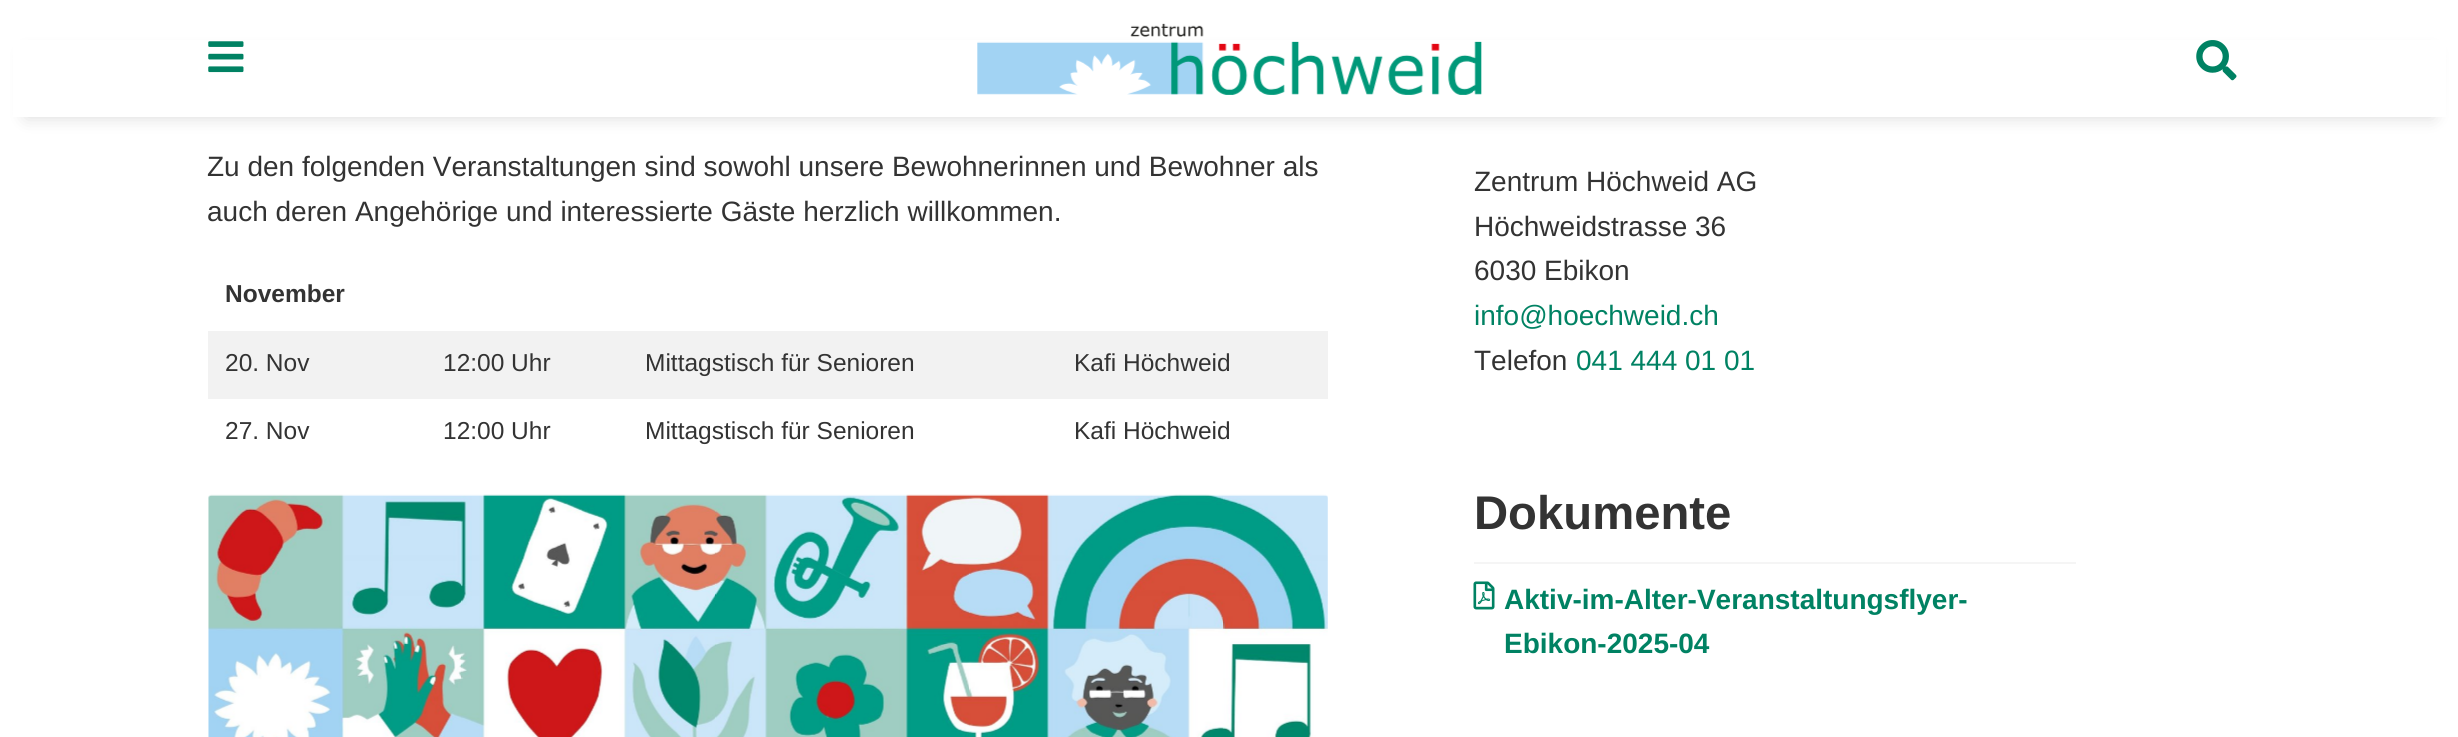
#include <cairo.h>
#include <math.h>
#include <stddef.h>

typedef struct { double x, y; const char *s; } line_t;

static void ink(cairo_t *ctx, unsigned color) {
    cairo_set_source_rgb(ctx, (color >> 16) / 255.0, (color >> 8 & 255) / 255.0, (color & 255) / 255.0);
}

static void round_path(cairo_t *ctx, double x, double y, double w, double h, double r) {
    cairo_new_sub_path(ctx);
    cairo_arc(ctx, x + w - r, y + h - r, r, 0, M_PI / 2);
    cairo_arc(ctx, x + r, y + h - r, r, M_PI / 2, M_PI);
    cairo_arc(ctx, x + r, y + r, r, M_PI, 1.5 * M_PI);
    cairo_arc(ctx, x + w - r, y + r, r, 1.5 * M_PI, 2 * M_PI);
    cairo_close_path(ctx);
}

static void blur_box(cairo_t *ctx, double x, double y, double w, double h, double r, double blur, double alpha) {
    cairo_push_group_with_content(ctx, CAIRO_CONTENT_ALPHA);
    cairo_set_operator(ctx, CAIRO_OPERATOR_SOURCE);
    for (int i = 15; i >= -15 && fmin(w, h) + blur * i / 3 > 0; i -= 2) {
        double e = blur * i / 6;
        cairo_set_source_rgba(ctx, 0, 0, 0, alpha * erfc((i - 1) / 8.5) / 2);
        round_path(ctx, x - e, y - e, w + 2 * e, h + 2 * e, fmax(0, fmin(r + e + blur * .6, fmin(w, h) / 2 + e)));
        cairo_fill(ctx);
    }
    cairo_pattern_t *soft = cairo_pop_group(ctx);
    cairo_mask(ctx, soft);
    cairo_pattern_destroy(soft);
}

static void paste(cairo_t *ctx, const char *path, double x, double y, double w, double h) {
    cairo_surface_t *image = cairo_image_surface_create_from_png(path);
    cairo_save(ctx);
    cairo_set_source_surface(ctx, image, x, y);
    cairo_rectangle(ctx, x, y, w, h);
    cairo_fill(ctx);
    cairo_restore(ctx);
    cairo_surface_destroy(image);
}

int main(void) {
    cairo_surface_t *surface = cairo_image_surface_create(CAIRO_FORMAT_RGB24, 2458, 737);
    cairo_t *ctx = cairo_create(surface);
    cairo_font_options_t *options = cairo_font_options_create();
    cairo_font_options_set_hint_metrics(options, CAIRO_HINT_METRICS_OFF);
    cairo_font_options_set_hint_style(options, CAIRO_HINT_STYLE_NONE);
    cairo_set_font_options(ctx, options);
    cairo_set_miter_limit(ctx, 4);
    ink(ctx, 0xFFFFFF);
    cairo_paint(ctx);
    ink(ctx, 0x000000);
    blur_box(ctx, 26, 53, 2407, 64, 0, 9, 0.15);
    ink(ctx, 0xFFFFFF);
    cairo_rectangle(ctx, 13, 40, 2433, 77);
    cairo_fill(ctx);
    paste(ctx, "media/1.png", 208, 41, 36, 32);
    paste(ctx, "media/2.png", 977, 23, 505, 72);
    paste(ctx, "media/3.png", 2196, 40, 41, 41);
    cairo_select_font_face(ctx, "Liberation Sans", CAIRO_FONT_SLANT_NORMAL, CAIRO_FONT_WEIGHT_NORMAL);
    cairo_set_font_size(ctx, 28);
    ink(ctx, 0x333333);
    cairo_move_to(ctx, 207, 176);
    cairo_show_text(ctx, "Zu den folgenden Veranstaltungen sind sowohl unsere Bewohnerinnen und Bewohner als");
    cairo_move_to(ctx, 207, 221);
    cairo_show_text(ctx, "auch deren Angehörige und interessierte Gäste herzlich willkommen.");
    cairo_select_font_face(ctx, "Liberation Sans", CAIRO_FONT_SLANT_NORMAL, CAIRO_FONT_WEIGHT_BOLD);
    cairo_set_font_size(ctx, 24.5);
    cairo_move_to(ctx, 225, 302);
    cairo_show_text(ctx, "November");
    ink(ctx, 0xF2F2F2);
    cairo_rectangle(ctx, 208, 331, 1120, 68);
    cairo_fill(ctx);
    cairo_select_font_face(ctx, "Liberation Sans", CAIRO_FONT_SLANT_NORMAL, CAIRO_FONT_WEIGHT_NORMAL);
    ink(ctx, 0x333333);
    {
        static const line_t items[] = {
            {225, 371, "20. Nov"},
            {443, 371, "12:00 Uhr"},
            {645, 371, "Mittagstisch für Senioren"},
            {1074, 371, "Kafi Höchweid"},
            {225, 439, "27. Nov"},
            {443, 439, "12:00 Uhr"},
            {645, 439, "Mittagstisch für Senioren"},
            {1074, 439, "Kafi Höchweid"},
        };
        for (size_t i = 0; i < sizeof items / sizeof *items; i++) {
            cairo_move_to(ctx, items[i].x, items[i].y);
            cairo_show_text(ctx, items[i].s);
        }
    }
    paste(ctx, "media/4.png", 208, 494, 1120, 243);
    cairo_set_font_size(ctx, 28);
    {
        static const line_t items[] = {
            {1474, 191, "Zentrum Höchweid AG"},
            {1474, 236, "Höchweidstrasse 36"},
            {1474, 280, "6030 Ebikon"},
        };
        for (size_t i = 0; i < sizeof items / sizeof *items; i++) {
            cairo_move_to(ctx, items[i].x, items[i].y);
            cairo_show_text(ctx, items[i].s);
        }
    }
    ink(ctx, 0x008263);
    cairo_move_to(ctx, 1474, 325);
    cairo_show_text(ctx, "info@hoechweid.ch");
    ink(ctx, 0x333333);
    cairo_move_to(ctx, 1474, 370);
    cairo_show_text(ctx, "Telefon");
    ink(ctx, 0x008263);
    cairo_move_to(ctx, 1576, 370);
    cairo_show_text(ctx, "041 444 01 01");
    cairo_select_font_face(ctx, "Liberation Sans", CAIRO_FONT_SLANT_NORMAL, CAIRO_FONT_WEIGHT_BOLD);
    cairo_set_font_size(ctx, 47.25);
    ink(ctx, 0x333333);
    cairo_move_to(ctx, 1474, 529);
    cairo_show_text(ctx, "Dokumente");
    ink(ctx, 0xF5F5F5);
    cairo_rectangle(ctx, 1474, 562, 602, 2);
    cairo_fill(ctx);
    paste(ctx, "media/5.png", 1473, 581, 22, 29);
    cairo_set_font_size(ctx, 28);
    ink(ctx, 0x008263);
    cairo_move_to(ctx, 1504, 609);
    cairo_show_text(ctx, "Aktiv-im-Alter-Veranstaltungsflyer-");
    cairo_move_to(ctx, 1504, 653);
    cairo_show_text(ctx, "Ebikon-2025-04");
    cairo_surface_write_to_png(surface, "image.png");
    cairo_font_options_destroy(options);
    cairo_destroy(ctx);
    cairo_surface_destroy(surface);
    return 0;
}
